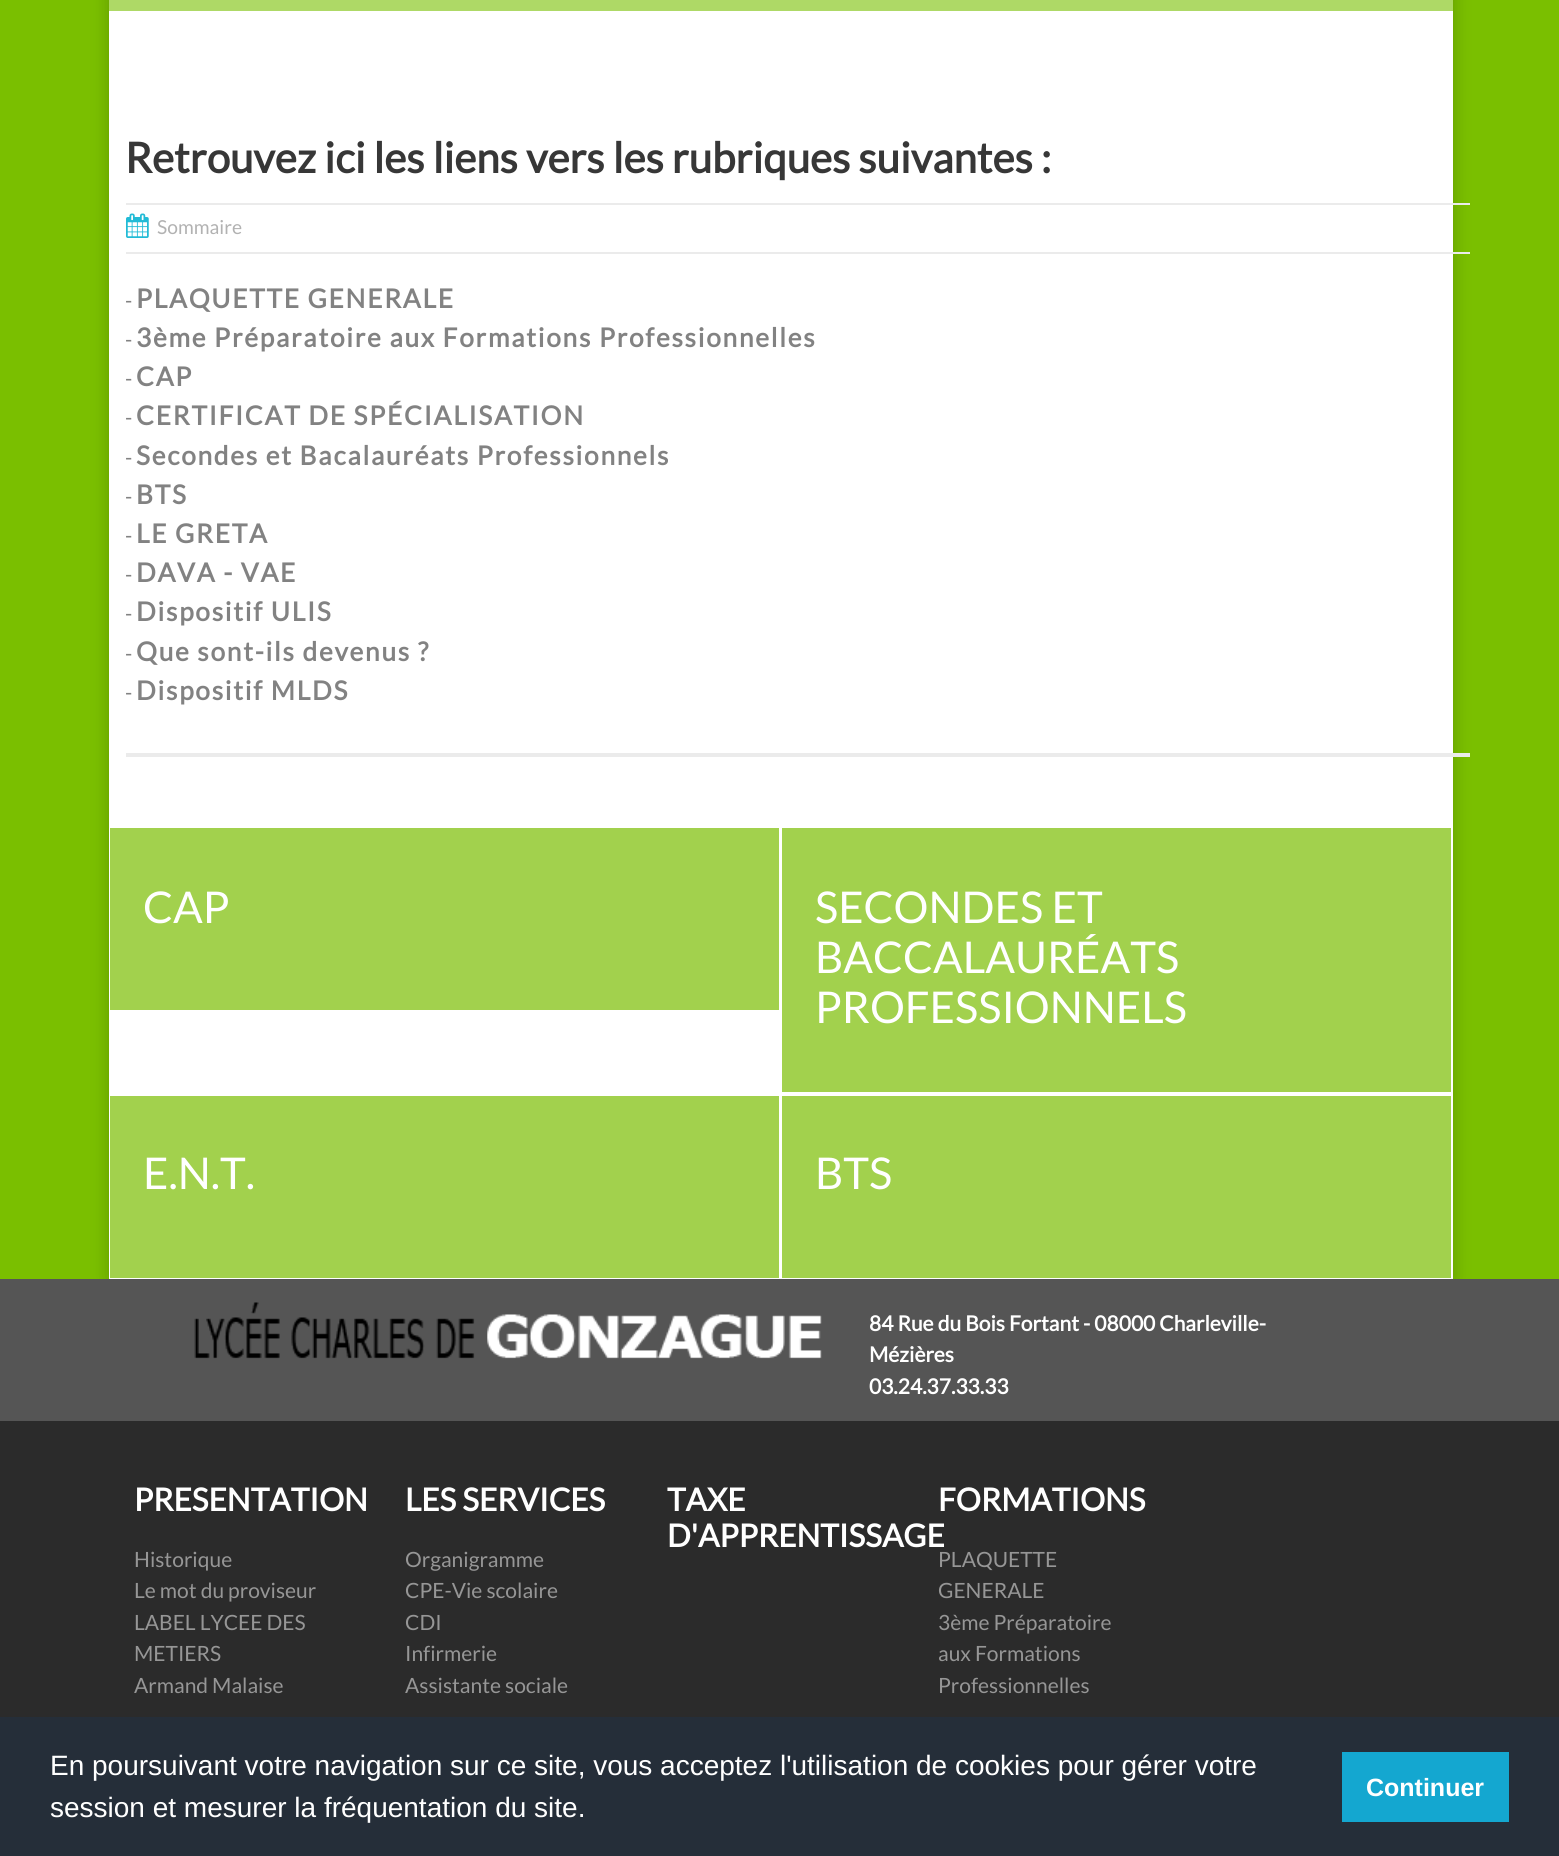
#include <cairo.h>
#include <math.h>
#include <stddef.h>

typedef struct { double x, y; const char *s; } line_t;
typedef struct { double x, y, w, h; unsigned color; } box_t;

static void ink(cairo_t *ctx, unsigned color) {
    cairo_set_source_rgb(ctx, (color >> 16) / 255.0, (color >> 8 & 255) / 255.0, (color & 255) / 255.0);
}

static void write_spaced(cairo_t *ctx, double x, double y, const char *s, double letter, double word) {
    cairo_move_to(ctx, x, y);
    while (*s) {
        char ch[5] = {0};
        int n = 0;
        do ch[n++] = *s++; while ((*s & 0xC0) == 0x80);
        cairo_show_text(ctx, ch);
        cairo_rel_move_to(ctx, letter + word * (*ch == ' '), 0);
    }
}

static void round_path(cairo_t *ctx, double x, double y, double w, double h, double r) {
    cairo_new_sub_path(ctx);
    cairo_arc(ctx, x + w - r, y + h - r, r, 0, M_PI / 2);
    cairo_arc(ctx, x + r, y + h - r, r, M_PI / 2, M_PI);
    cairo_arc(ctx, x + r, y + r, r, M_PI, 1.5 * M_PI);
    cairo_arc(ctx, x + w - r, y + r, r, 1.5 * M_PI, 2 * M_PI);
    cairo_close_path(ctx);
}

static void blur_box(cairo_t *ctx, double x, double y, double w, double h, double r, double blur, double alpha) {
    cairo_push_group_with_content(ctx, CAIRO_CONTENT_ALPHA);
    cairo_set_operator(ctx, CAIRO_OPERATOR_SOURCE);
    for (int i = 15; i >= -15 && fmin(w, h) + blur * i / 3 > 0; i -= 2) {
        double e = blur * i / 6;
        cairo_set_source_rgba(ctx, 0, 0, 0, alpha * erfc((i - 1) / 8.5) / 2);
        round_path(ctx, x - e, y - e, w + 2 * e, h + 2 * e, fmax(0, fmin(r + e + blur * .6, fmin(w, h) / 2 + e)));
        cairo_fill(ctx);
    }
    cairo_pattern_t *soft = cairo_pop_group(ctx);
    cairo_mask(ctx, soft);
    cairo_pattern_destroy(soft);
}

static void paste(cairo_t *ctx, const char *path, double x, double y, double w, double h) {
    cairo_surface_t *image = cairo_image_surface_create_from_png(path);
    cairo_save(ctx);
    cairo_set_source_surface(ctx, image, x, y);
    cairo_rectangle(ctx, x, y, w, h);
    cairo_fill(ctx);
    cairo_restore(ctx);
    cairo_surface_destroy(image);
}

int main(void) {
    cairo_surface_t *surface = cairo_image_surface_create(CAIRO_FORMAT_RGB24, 1559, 1856);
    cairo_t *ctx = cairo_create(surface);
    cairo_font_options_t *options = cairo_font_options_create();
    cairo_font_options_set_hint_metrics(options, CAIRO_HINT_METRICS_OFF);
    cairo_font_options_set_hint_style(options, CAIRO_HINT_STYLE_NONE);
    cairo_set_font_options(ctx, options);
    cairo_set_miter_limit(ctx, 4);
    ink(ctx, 0x7ABF00);
    cairo_paint(ctx);
    ink(ctx, 0x000000);
    blur_box(ctx, 109, -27, 1344, 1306, 0, 9, 0.2);
    {
        static const box_t items[] = {
            {109, 11, 1344, 1268, 0xFFFFFF},
            {109, 0, 1344, 11, 0xAED966},
            {126, 753, 1344, 4, 0xEBEBEB},
        };
        for (size_t i = 0; i < sizeof items / sizeof *items; i++) {
            ink(ctx, items[i].color);
            cairo_rectangle(ctx, items[i].x, items[i].y, items[i].w, items[i].h);
            cairo_fill(ctx);
        }
    }
    cairo_select_font_face(ctx, "Lato", CAIRO_FONT_SLANT_NORMAL, CAIRO_FONT_WEIGHT_BOLD);
    cairo_set_font_size(ctx, 42);
    ink(ctx, 0x373737);
    cairo_move_to(ctx, 125, 173);
    cairo_show_text(ctx, "Retrouvez ici les liens vers les rubriques suivantes :");
    ink(ctx, 0xEBEBEB);
    cairo_rectangle(ctx, 126, 203, 1344, 2);
    cairo_fill(ctx);
    cairo_rectangle(ctx, 126, 252, 1344, 2);
    cairo_fill(ctx);
    paste(ctx, "media/1.png", 126, 213, 23, 25);
    cairo_select_font_face(ctx, "Lato", CAIRO_FONT_SLANT_NORMAL, CAIRO_FONT_WEIGHT_NORMAL);
    cairo_set_font_size(ctx, 19.25);
    ink(ctx, 0xB2B2B2);
    cairo_move_to(ctx, 157, 234);
    cairo_show_text(ctx, "Sommaire");
    cairo_set_font_size(ctx, 21);
    ink(ctx, 0x828282);
    cairo_move_to(ctx, 125, 308);
    cairo_show_text(ctx, "-");
    cairo_select_font_face(ctx, "Lato", CAIRO_FONT_SLANT_NORMAL, CAIRO_FONT_WEIGHT_BOLD);
    cairo_set_font_size(ctx, 26.25);
    write_spaced(ctx, 136, 308, "PLAQUETTE GENERALE", 1.75, 0);
    cairo_select_font_face(ctx, "Lato", CAIRO_FONT_SLANT_NORMAL, CAIRO_FONT_WEIGHT_NORMAL);
    cairo_set_font_size(ctx, 21);
    cairo_move_to(ctx, 125, 347);
    cairo_show_text(ctx, "-");
    cairo_select_font_face(ctx, "Lato", CAIRO_FONT_SLANT_NORMAL, CAIRO_FONT_WEIGHT_BOLD);
    cairo_set_font_size(ctx, 26.25);
    write_spaced(ctx, 136, 347, "3ème Préparatoire aux Formations Professionnelles", 1.75, 0);
    cairo_select_font_face(ctx, "Lato", CAIRO_FONT_SLANT_NORMAL, CAIRO_FONT_WEIGHT_NORMAL);
    cairo_set_font_size(ctx, 21);
    cairo_move_to(ctx, 125, 386);
    cairo_show_text(ctx, "-");
    cairo_select_font_face(ctx, "Lato", CAIRO_FONT_SLANT_NORMAL, CAIRO_FONT_WEIGHT_BOLD);
    cairo_set_font_size(ctx, 26.25);
    write_spaced(ctx, 136, 386, "CAP", 1.75, 0);
    cairo_select_font_face(ctx, "Lato", CAIRO_FONT_SLANT_NORMAL, CAIRO_FONT_WEIGHT_NORMAL);
    cairo_set_font_size(ctx, 21);
    cairo_move_to(ctx, 125, 425);
    cairo_show_text(ctx, "-");
    cairo_select_font_face(ctx, "Lato", CAIRO_FONT_SLANT_NORMAL, CAIRO_FONT_WEIGHT_BOLD);
    cairo_set_font_size(ctx, 26.25);
    write_spaced(ctx, 136, 425, "CERTIFICAT DE SPÉCIALISATION", 1.75, 0);
    cairo_select_font_face(ctx, "Lato", CAIRO_FONT_SLANT_NORMAL, CAIRO_FONT_WEIGHT_NORMAL);
    cairo_set_font_size(ctx, 21);
    cairo_move_to(ctx, 125, 465);
    cairo_show_text(ctx, "-");
    cairo_select_font_face(ctx, "Lato", CAIRO_FONT_SLANT_NORMAL, CAIRO_FONT_WEIGHT_BOLD);
    cairo_set_font_size(ctx, 26.25);
    write_spaced(ctx, 136, 465, "Secondes et Bacalauréats Professionnels", 1.75, 0);
    cairo_select_font_face(ctx, "Lato", CAIRO_FONT_SLANT_NORMAL, CAIRO_FONT_WEIGHT_NORMAL);
    cairo_set_font_size(ctx, 21);
    cairo_move_to(ctx, 125, 504);
    cairo_show_text(ctx, "-");
    cairo_select_font_face(ctx, "Lato", CAIRO_FONT_SLANT_NORMAL, CAIRO_FONT_WEIGHT_BOLD);
    cairo_set_font_size(ctx, 26.25);
    write_spaced(ctx, 136, 504, "BTS", 1.75, 0);
    cairo_select_font_face(ctx, "Lato", CAIRO_FONT_SLANT_NORMAL, CAIRO_FONT_WEIGHT_NORMAL);
    cairo_set_font_size(ctx, 21);
    cairo_move_to(ctx, 125, 543);
    cairo_show_text(ctx, "-");
    cairo_select_font_face(ctx, "Lato", CAIRO_FONT_SLANT_NORMAL, CAIRO_FONT_WEIGHT_BOLD);
    cairo_set_font_size(ctx, 26.25);
    write_spaced(ctx, 136, 543, "LE GRETA", 1.75, 0);
    cairo_select_font_face(ctx, "Lato", CAIRO_FONT_SLANT_NORMAL, CAIRO_FONT_WEIGHT_NORMAL);
    cairo_set_font_size(ctx, 21);
    cairo_move_to(ctx, 125, 582);
    cairo_show_text(ctx, "-");
    cairo_select_font_face(ctx, "Lato", CAIRO_FONT_SLANT_NORMAL, CAIRO_FONT_WEIGHT_BOLD);
    cairo_set_font_size(ctx, 26.25);
    write_spaced(ctx, 136, 582, "DAVA - VAE", 1.75, 0);
    cairo_select_font_face(ctx, "Lato", CAIRO_FONT_SLANT_NORMAL, CAIRO_FONT_WEIGHT_NORMAL);
    cairo_set_font_size(ctx, 21);
    cairo_move_to(ctx, 125, 621);
    cairo_show_text(ctx, "-");
    cairo_select_font_face(ctx, "Lato", CAIRO_FONT_SLANT_NORMAL, CAIRO_FONT_WEIGHT_BOLD);
    cairo_set_font_size(ctx, 26.25);
    write_spaced(ctx, 136, 621, "Dispositif ULIS", 1.75, 0);
    cairo_select_font_face(ctx, "Lato", CAIRO_FONT_SLANT_NORMAL, CAIRO_FONT_WEIGHT_NORMAL);
    cairo_set_font_size(ctx, 21);
    cairo_move_to(ctx, 125, 661);
    cairo_show_text(ctx, "-");
    cairo_select_font_face(ctx, "Lato", CAIRO_FONT_SLANT_NORMAL, CAIRO_FONT_WEIGHT_BOLD);
    cairo_set_font_size(ctx, 26.25);
    write_spaced(ctx, 136, 661, "Que sont-ils devenus ?", 1.75, 0);
    cairo_select_font_face(ctx, "Lato", CAIRO_FONT_SLANT_NORMAL, CAIRO_FONT_WEIGHT_NORMAL);
    cairo_set_font_size(ctx, 21);
    cairo_move_to(ctx, 125, 700);
    cairo_show_text(ctx, "-");
    cairo_select_font_face(ctx, "Lato", CAIRO_FONT_SLANT_NORMAL, CAIRO_FONT_WEIGHT_BOLD);
    cairo_set_font_size(ctx, 26.25);
    write_spaced(ctx, 136, 700, "Dispositif MLDS", 1.75, 0);
    ink(ctx, 0xA2D14D);
    cairo_rectangle(ctx, 110, 828, 669, 182);
    cairo_fill(ctx);
    cairo_select_font_face(ctx, "Lato", CAIRO_FONT_SLANT_NORMAL, CAIRO_FONT_WEIGHT_NORMAL);
    cairo_set_font_size(ctx, 43.75);
    ink(ctx, 0xFFFFFF);
    cairo_move_to(ctx, 143, 923);
    cairo_show_text(ctx, "CAP");
    ink(ctx, 0xA2D14D);
    cairo_rectangle(ctx, 782, 828, 669, 264);
    cairo_fill(ctx);
    ink(ctx, 0xFFFFFF);
    {
        static const line_t items[] = {
            {815, 923, "SECONDES ET"},
            {815, 973, "BACCALAURÉATS"},
            {815, 1023, "PROFESSIONNELS"},
        };
        for (size_t i = 0; i < sizeof items / sizeof *items; i++) {
            cairo_move_to(ctx, items[i].x, items[i].y);
            cairo_show_text(ctx, items[i].s);
        }
    }
    ink(ctx, 0xA2D14D);
    cairo_rectangle(ctx, 110, 1096, 669, 182);
    cairo_fill(ctx);
    ink(ctx, 0xFFFFFF);
    cairo_move_to(ctx, 143, 1189);
    cairo_show_text(ctx, "E.N.T.");
    ink(ctx, 0xA2D14D);
    cairo_rectangle(ctx, 782, 1096, 669, 182);
    cairo_fill(ctx);
    ink(ctx, 0xFFFFFF);
    cairo_move_to(ctx, 815, 1189);
    cairo_show_text(ctx, "BTS");
    ink(ctx, 0x555555);
    cairo_rectangle(ctx, 0, 1279, 1559, 142);
    cairo_fill(ctx);
    paste(ctx, "media/2.png", 194, 1302, 628, 57);
    cairo_select_font_face(ctx, "Lato", CAIRO_FONT_SLANT_NORMAL, CAIRO_FONT_WEIGHT_BOLD);
    cairo_set_font_size(ctx, 21);
    ink(ctx, 0xFFFFFF);
    {
        static const line_t items[] = {
            {869, 1331, "84 Rue du Bois Fortant - 08000 Charleville-"},
            {869, 1362, "Mézières"},
            {869, 1394, "03.24.37.33.33"},
        };
        for (size_t i = 0; i < sizeof items / sizeof *items; i++) {
            cairo_move_to(ctx, items[i].x, items[i].y);
            cairo_show_text(ctx, items[i].s);
        }
    }
    ink(ctx, 0x2B2B2B);
    cairo_rectangle(ctx, 0, 1421, 1559, 296);
    cairo_fill(ctx);
    cairo_set_font_size(ctx, 31.5);
    ink(ctx, 0xFFFFFF);
    cairo_move_to(ctx, 134, 1511);
    cairo_show_text(ctx, "PRESENTATION");
    cairo_select_font_face(ctx, "Lato", CAIRO_FONT_SLANT_NORMAL, CAIRO_FONT_WEIGHT_NORMAL);
    cairo_set_font_size(ctx, 21);
    ink(ctx, 0x969696);
    {
        static const line_t items[] = {
            {134, 1567, "Historique"},
            {134, 1598, "Le mot du proviseur"},
            {134, 1630, "LABEL LYCEE DES"},
            {134, 1661, "METIERS"},
            {134, 1693, "Armand Malaise"},
        };
        for (size_t i = 0; i < sizeof items / sizeof *items; i++) {
            cairo_move_to(ctx, items[i].x, items[i].y);
            cairo_show_text(ctx, items[i].s);
        }
    }
    cairo_select_font_face(ctx, "Lato", CAIRO_FONT_SLANT_NORMAL, CAIRO_FONT_WEIGHT_BOLD);
    cairo_set_font_size(ctx, 31.5);
    ink(ctx, 0xFFFFFF);
    cairo_move_to(ctx, 405, 1511);
    cairo_show_text(ctx, "LES SERVICES");
    cairo_select_font_face(ctx, "Lato", CAIRO_FONT_SLANT_NORMAL, CAIRO_FONT_WEIGHT_NORMAL);
    cairo_set_font_size(ctx, 21);
    ink(ctx, 0x969696);
    {
        static const line_t items[] = {
            {405, 1567, "Organigramme"},
            {405, 1598, "CPE-Vie scolaire"},
            {405, 1630, "CDI"},
            {405, 1661, "Infirmerie"},
            {405, 1693, "Assistante sociale"},
        };
        for (size_t i = 0; i < sizeof items / sizeof *items; i++) {
            cairo_move_to(ctx, items[i].x, items[i].y);
            cairo_show_text(ctx, items[i].s);
        }
    }
    cairo_select_font_face(ctx, "Lato", CAIRO_FONT_SLANT_NORMAL, CAIRO_FONT_WEIGHT_BOLD);
    cairo_set_font_size(ctx, 31.5);
    ink(ctx, 0xFFFFFF);
    {
        static const line_t items[] = {
            {667, 1511, "TAXE"},
            {667, 1547, "D'APPRENTISSAGE"},
            {938, 1511, "FORMATIONS"},
        };
        for (size_t i = 0; i < sizeof items / sizeof *items; i++) {
            cairo_move_to(ctx, items[i].x, items[i].y);
            cairo_show_text(ctx, items[i].s);
        }
    }
    cairo_select_font_face(ctx, "Lato", CAIRO_FONT_SLANT_NORMAL, CAIRO_FONT_WEIGHT_NORMAL);
    cairo_set_font_size(ctx, 21);
    ink(ctx, 0x969696);
    {
        static const line_t items[] = {
            {938, 1567, "PLAQUETTE"},
            {938, 1598, "GENERALE"},
            {938, 1630, "3ème Préparatoire"},
            {938, 1661, "aux Formations"},
            {938, 1693, "Professionnelles"},
        };
        for (size_t i = 0; i < sizeof items / sizeof *items; i++) {
            cairo_move_to(ctx, items[i].x, items[i].y);
            cairo_show_text(ctx, items[i].s);
        }
    }
    ink(ctx, 0x252E39);
    cairo_rectangle(ctx, 0, 1717, 1559, 139);
    cairo_fill(ctx);
    cairo_select_font_face(ctx, "Liberation Sans", CAIRO_FONT_SLANT_NORMAL, CAIRO_FONT_WEIGHT_NORMAL);
    cairo_set_font_size(ctx, 28);
    ink(ctx, 0xFFFFFF);
    cairo_move_to(ctx, 50, 1775);
    cairo_show_text(ctx, "En poursuivant votre navigation sur ce site, vous acceptez l'utilisation de cookies pour gérer votre");
    cairo_move_to(ctx, 50, 1817);
    cairo_show_text(ctx, "session et mesurer la fréquentation du site.");
    ink(ctx, 0x14A7D0);
    cairo_rectangle(ctx, 1342, 1752, 167, 70);
    cairo_fill(ctx);
    cairo_select_font_face(ctx, "Liberation Sans", CAIRO_FONT_SLANT_NORMAL, CAIRO_FONT_WEIGHT_BOLD);
    cairo_set_font_size(ctx, 25);
    ink(ctx, 0xFFFFFF);
    cairo_move_to(ctx, 1366, 1796);
    cairo_show_text(ctx, "Continuer");
    cairo_surface_write_to_png(surface, "image.png");
    cairo_font_options_destroy(options);
    cairo_destroy(ctx);
    cairo_surface_destroy(surface);
    return 0;
}
